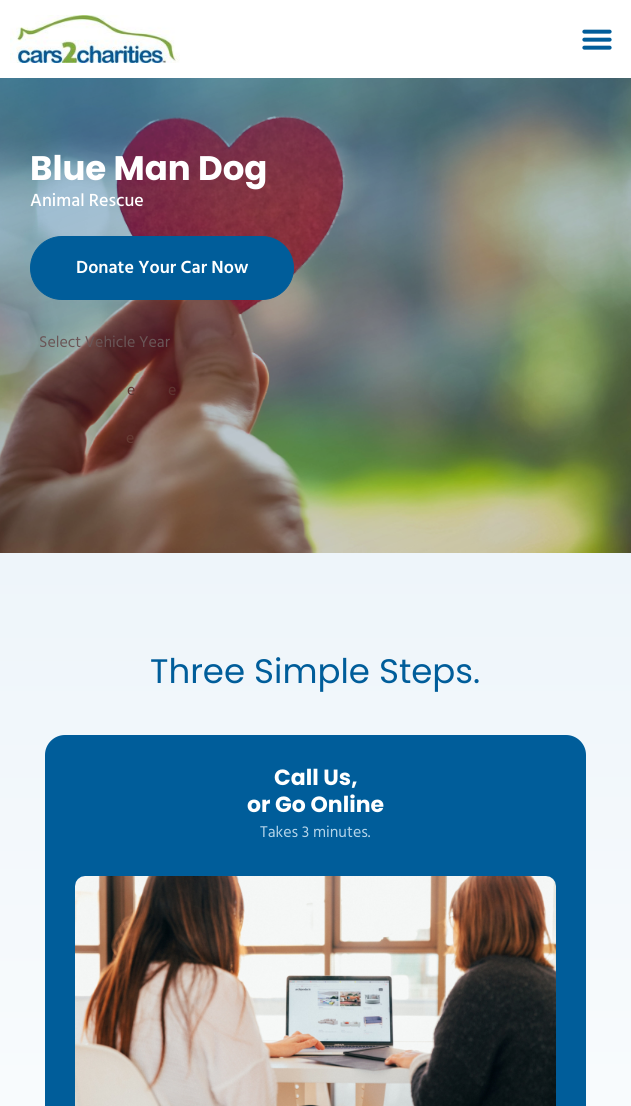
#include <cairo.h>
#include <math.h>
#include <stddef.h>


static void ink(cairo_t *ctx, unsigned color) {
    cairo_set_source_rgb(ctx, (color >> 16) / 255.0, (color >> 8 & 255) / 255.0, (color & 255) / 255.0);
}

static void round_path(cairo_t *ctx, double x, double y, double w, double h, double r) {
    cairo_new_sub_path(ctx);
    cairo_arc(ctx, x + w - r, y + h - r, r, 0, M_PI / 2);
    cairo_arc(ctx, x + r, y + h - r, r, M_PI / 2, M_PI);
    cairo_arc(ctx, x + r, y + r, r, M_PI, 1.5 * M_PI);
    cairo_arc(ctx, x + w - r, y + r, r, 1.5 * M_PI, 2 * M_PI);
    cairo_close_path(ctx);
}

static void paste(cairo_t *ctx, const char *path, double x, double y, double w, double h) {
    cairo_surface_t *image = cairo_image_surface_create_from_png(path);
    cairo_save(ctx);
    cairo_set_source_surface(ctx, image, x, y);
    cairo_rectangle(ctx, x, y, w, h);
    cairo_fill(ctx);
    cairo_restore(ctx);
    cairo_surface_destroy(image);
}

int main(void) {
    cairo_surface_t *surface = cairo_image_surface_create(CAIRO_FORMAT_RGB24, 631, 1106);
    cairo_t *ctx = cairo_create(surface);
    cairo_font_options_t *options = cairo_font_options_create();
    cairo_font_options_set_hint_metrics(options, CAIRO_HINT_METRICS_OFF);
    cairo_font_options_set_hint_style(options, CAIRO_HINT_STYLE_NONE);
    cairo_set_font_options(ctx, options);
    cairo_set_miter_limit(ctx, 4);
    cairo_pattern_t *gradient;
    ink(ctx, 0xFFFFFF);
    cairo_paint(ctx);
    paste(ctx, "media/1.png", 10, 15, 170, 48);
    paste(ctx, "media/2.png", 582, 29, 30, 21);
    paste(ctx, "media/3.png", 0, 78, 631, 475);
    cairo_select_font_face(ctx, "Poppins", CAIRO_FONT_SLANT_NORMAL, CAIRO_FONT_WEIGHT_BOLD);
    cairo_set_font_size(ctx, 34);
    ink(ctx, 0xFFFFFF);
    cairo_move_to(ctx, 30, 180);
    cairo_show_text(ctx, "Blue Man Dog");
    cairo_select_font_face(ctx, "Hind Siliguri Medium", CAIRO_FONT_SLANT_NORMAL, CAIRO_FONT_WEIGHT_NORMAL);
    cairo_set_font_size(ctx, 18);
    cairo_move_to(ctx, 30, 206);
    cairo_show_text(ctx, "Animal Rescue");
    ink(ctx, 0x005D9A);
    round_path(ctx, 30.5, 236.5, 263, 63, 31.5);
    cairo_fill_preserve(ctx);
    cairo_set_line_width(ctx, 1);
    cairo_stroke(ctx);
    cairo_select_font_face(ctx, "Hind Siliguri SemiBold", CAIRO_FONT_SLANT_NORMAL, CAIRO_FONT_WEIGHT_NORMAL);
    ink(ctx, 0xFFFFFF);
    cairo_move_to(ctx, 76, 273);
    cairo_show_text(ctx, "Donate Your Car Now");
    gradient = cairo_pattern_create_linear(315, 553, 316, 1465);
    cairo_pattern_add_color_stop_rgba(gradient, 0, 0.933, 0.961, 0.98, 1);
    cairo_pattern_add_color_stop_rgba(gradient, 1, 1, 1, 1, 1);
    cairo_set_source(ctx, gradient);
    cairo_pattern_destroy(gradient);
    cairo_rectangle(ctx, 0, 553, 631, 553);
    cairo_fill(ctx);
    cairo_select_font_face(ctx, "Poppins", CAIRO_FONT_SLANT_NORMAL, CAIRO_FONT_WEIGHT_NORMAL);
    cairo_set_font_size(ctx, 34);
    ink(ctx, 0x005D9A);
    cairo_move_to(ctx, 150, 683);
    cairo_show_text(ctx, "Three Simple Steps.");
    round_path(ctx, 45, 735, 541, 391, 20);
    cairo_fill(ctx);
    cairo_select_font_face(ctx, "Poppins", CAIRO_FONT_SLANT_NORMAL, CAIRO_FONT_WEIGHT_BOLD);
    cairo_set_font_size(ctx, 22);
    ink(ctx, 0xFFFFFF);
    cairo_move_to(ctx, 274, 785);
    cairo_show_text(ctx, "Call Us,");
    cairo_move_to(ctx, 247, 812);
    cairo_show_text(ctx, "or Go Online");
    cairo_select_font_face(ctx, "Hind Siliguri", CAIRO_FONT_SLANT_NORMAL, CAIRO_FONT_WEIGHT_NORMAL);
    cairo_set_font_size(ctx, 16);
    ink(ctx, 0xB4D4E9);
    cairo_move_to(ctx, 260, 837);
    cairo_show_text(ctx, "Takes 3 minutes.");
    paste(ctx, "media/4.png", 75, 876, 481, 230);
    ink(ctx, 0x6A5657);
    cairo_move_to(ctx, 39, 347);
    cairo_show_text(ctx, "Select Vehicle Year");
    ink(ctx, 0x5E3531);
    cairo_move_to(ctx, 127, 395);
    cairo_show_text(ctx, "e");
    cairo_move_to(ctx, 168, 395);
    cairo_show_text(ctx, "e");
    ink(ctx, 0x653B33);
    cairo_move_to(ctx, 126, 443);
    cairo_show_text(ctx, "e");
    cairo_surface_write_to_png(surface, "image.png");
    cairo_font_options_destroy(options);
    cairo_destroy(ctx);
    cairo_surface_destroy(surface);
    return 0;
}
